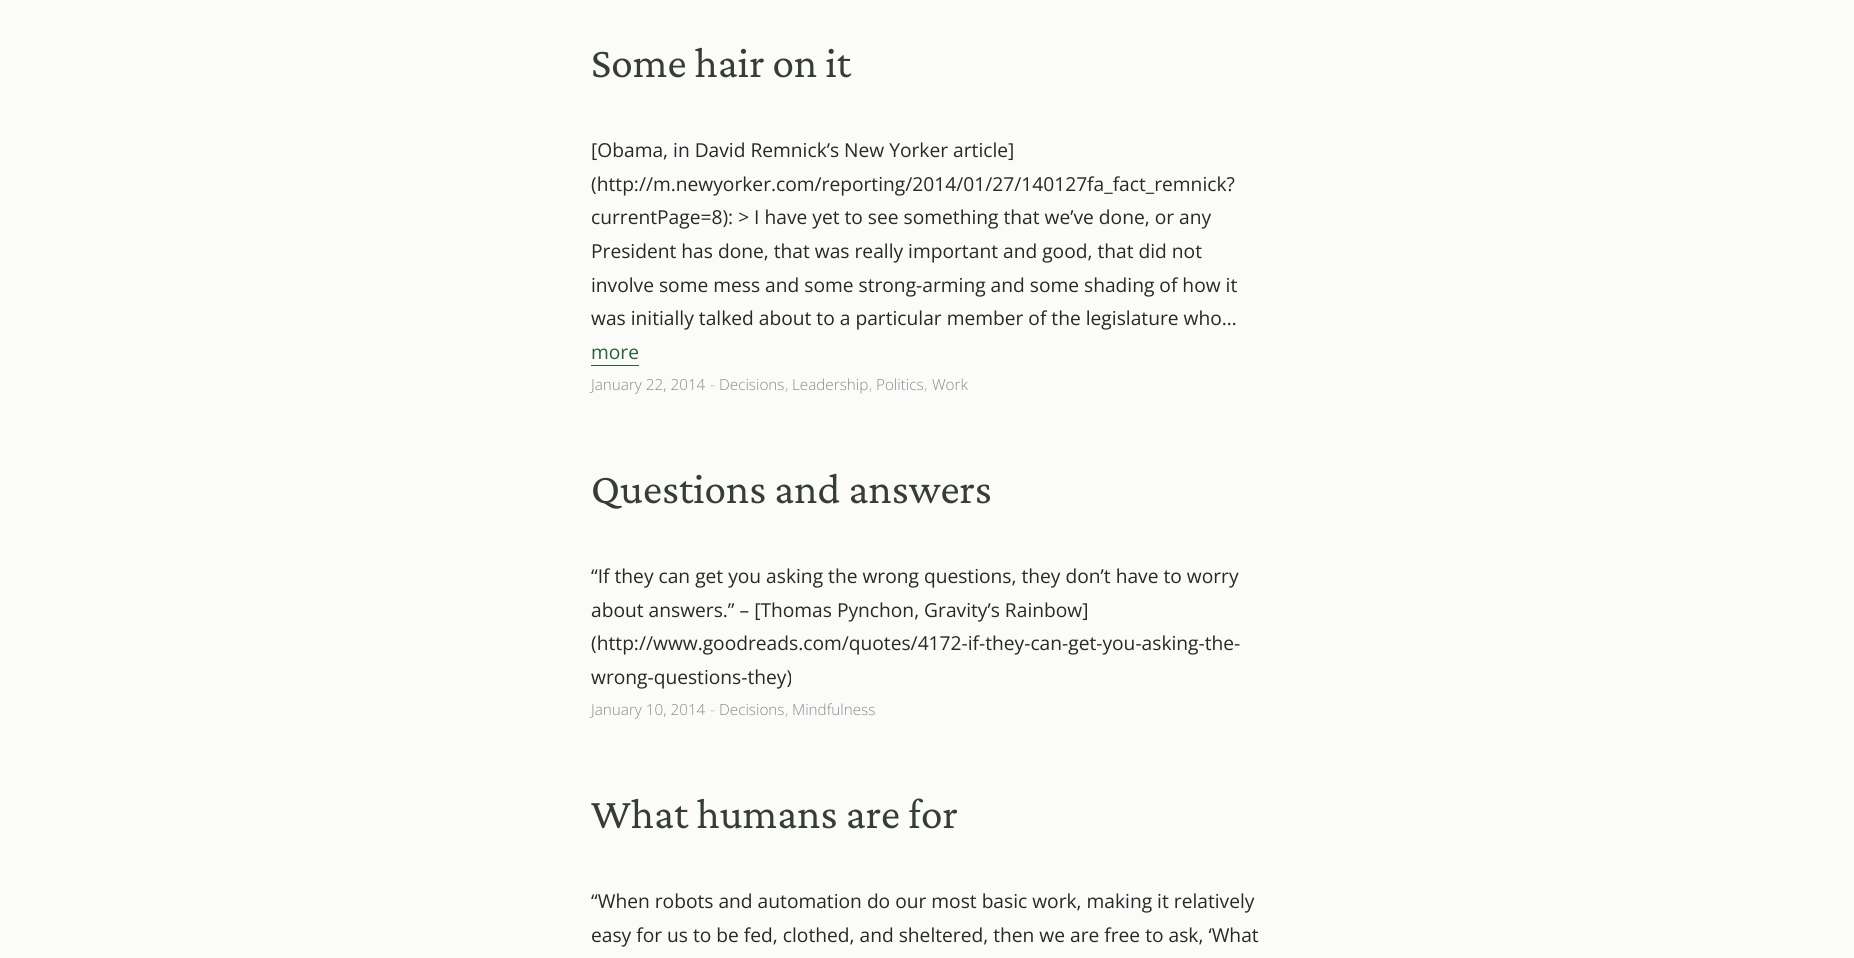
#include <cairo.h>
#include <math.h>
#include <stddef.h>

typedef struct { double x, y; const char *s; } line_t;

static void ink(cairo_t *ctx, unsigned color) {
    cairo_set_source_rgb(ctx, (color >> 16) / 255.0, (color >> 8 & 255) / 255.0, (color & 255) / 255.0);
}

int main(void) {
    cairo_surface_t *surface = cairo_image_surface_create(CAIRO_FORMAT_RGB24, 1854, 958);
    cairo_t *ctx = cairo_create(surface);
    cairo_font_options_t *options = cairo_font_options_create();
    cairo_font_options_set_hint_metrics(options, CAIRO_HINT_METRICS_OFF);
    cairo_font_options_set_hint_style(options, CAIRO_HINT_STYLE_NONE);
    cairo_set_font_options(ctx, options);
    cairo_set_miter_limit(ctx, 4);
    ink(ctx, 0xFBFBFA);
    cairo_paint(ctx);
    cairo_select_font_face(ctx, "Crimson Pro", CAIRO_FONT_SLANT_NORMAL, CAIRO_FONT_WEIGHT_NORMAL);
    cairo_set_font_size(ctx, 43.25);
    ink(ctx, 0x363D36);
    cairo_move_to(ctx, 591, 77);
    cairo_show_text(ctx, "Some hair on it");
    cairo_select_font_face(ctx, "Open Sans", CAIRO_FONT_SLANT_NORMAL, CAIRO_FONT_WEIGHT_NORMAL);
    cairo_set_font_size(ctx, 19.2);
    ink(ctx, 0x262926);
    {
        static const line_t items[] = {
            {591, 157, "[Obama, in David Remnick’s New Yorker article]"},
            {591, 191, "(http://m.newyorker.com/reporting/2014/01/27/140127fa_fact_remnick?"},
            {591, 224, "currentPage=8): > I have yet to see something that we’ve done, or any"},
            {591, 258, "President has done, that was really important and good, that did not"},
            {591, 292, "involve some mess and some strong-arming and some shading of how it"},
            {591, 325, "was initially talked about to a particular member of the legislature who…"},
        };
        for (size_t i = 0; i < sizeof items / sizeof *items; i++) {
            cairo_move_to(ctx, items[i].x, items[i].y);
            cairo_show_text(ctx, items[i].s);
        }
    }
    ink(ctx, 0x2C5F35);
    cairo_move_to(ctx, 591, 359);
    cairo_show_text(ctx, "more");
    cairo_rectangle(ctx, 591, 365, 48, 1);
    cairo_fill(ctx);
    cairo_select_font_face(ctx, "Open Sans Light", CAIRO_FONT_SLANT_NORMAL, CAIRO_FONT_WEIGHT_NORMAL);
    cairo_set_font_size(ctx, 15.25);
    ink(ctx, 0x888888);
    cairo_move_to(ctx, 591, 390);
    cairo_show_text(ctx, "January 22, 2014");
    ink(ctx, 0xAAAAAA);
    cairo_move_to(ctx, 710, 390);
    cairo_show_text(ctx, "-");
    ink(ctx, 0x888888);
    {
        static const line_t items[] = {
            {719, 390, "Decisions"},
            {792, 390, "Leadership"},
            {876, 390, "Politics"},
            {932, 390, "Work"},
        };
        for (size_t i = 0; i < sizeof items / sizeof *items; i++) {
            cairo_move_to(ctx, items[i].x, items[i].y);
            cairo_show_text(ctx, items[i].s);
        }
    }
    ink(ctx, 0xAAAAAA);
    {
        static const line_t items[] = {
            {785, 390, ","},
            {869, 390, ","},
            {924, 390, ","},
        };
        for (size_t i = 0; i < sizeof items / sizeof *items; i++) {
            cairo_move_to(ctx, items[i].x, items[i].y);
            cairo_show_text(ctx, items[i].s);
        }
    }
    cairo_select_font_face(ctx, "Crimson Pro", CAIRO_FONT_SLANT_NORMAL, CAIRO_FONT_WEIGHT_NORMAL);
    cairo_set_font_size(ctx, 43.25);
    ink(ctx, 0x363D36);
    cairo_move_to(ctx, 591, 503);
    cairo_show_text(ctx, "Questions and answers");
    cairo_select_font_face(ctx, "Open Sans", CAIRO_FONT_SLANT_NORMAL, CAIRO_FONT_WEIGHT_NORMAL);
    cairo_set_font_size(ctx, 19.2);
    ink(ctx, 0x262926);
    {
        static const line_t items[] = {
            {591, 583, "“If they can get you asking the wrong questions, they don’t have to worry"},
            {591, 617, "about answers.” – [Thomas Pynchon, Gravity’s Rainbow]"},
            {591, 650, "(http://www.goodreads.com/quotes/4172-if-they-can-get-you-asking-the-"},
            {591, 684, "wrong-questions-they)"},
        };
        for (size_t i = 0; i < sizeof items / sizeof *items; i++) {
            cairo_move_to(ctx, items[i].x, items[i].y);
            cairo_show_text(ctx, items[i].s);
        }
    }
    cairo_select_font_face(ctx, "Open Sans Light", CAIRO_FONT_SLANT_NORMAL, CAIRO_FONT_WEIGHT_NORMAL);
    cairo_set_font_size(ctx, 15.25);
    ink(ctx, 0x888888);
    cairo_move_to(ctx, 591, 715);
    cairo_show_text(ctx, "January 10, 2014");
    ink(ctx, 0xAAAAAA);
    cairo_move_to(ctx, 710, 715);
    cairo_show_text(ctx, "-");
    ink(ctx, 0x888888);
    cairo_move_to(ctx, 719, 715);
    cairo_show_text(ctx, "Decisions");
    cairo_move_to(ctx, 792, 715);
    cairo_show_text(ctx, "Mindfulness");
    ink(ctx, 0xAAAAAA);
    cairo_move_to(ctx, 785, 715);
    cairo_show_text(ctx, ",");
    cairo_select_font_face(ctx, "Crimson Pro", CAIRO_FONT_SLANT_NORMAL, CAIRO_FONT_WEIGHT_NORMAL);
    cairo_set_font_size(ctx, 43.25);
    ink(ctx, 0x363D36);
    cairo_move_to(ctx, 591, 828);
    cairo_show_text(ctx, "What humans are for");
    cairo_select_font_face(ctx, "Open Sans", CAIRO_FONT_SLANT_NORMAL, CAIRO_FONT_WEIGHT_NORMAL);
    cairo_set_font_size(ctx, 19.2);
    ink(ctx, 0x262926);
    cairo_move_to(ctx, 591, 908);
    cairo_show_text(ctx, "“When robots and automation do our most basic work, making it relatively");
    cairo_move_to(ctx, 591, 942);
    cairo_show_text(ctx, "easy for us to be fed, clothed, and sheltered, then we are free to ask, ‘What");
    cairo_surface_write_to_png(surface, "image.png");
    cairo_font_options_destroy(options);
    cairo_destroy(ctx);
    cairo_surface_destroy(surface);
    return 0;
}
